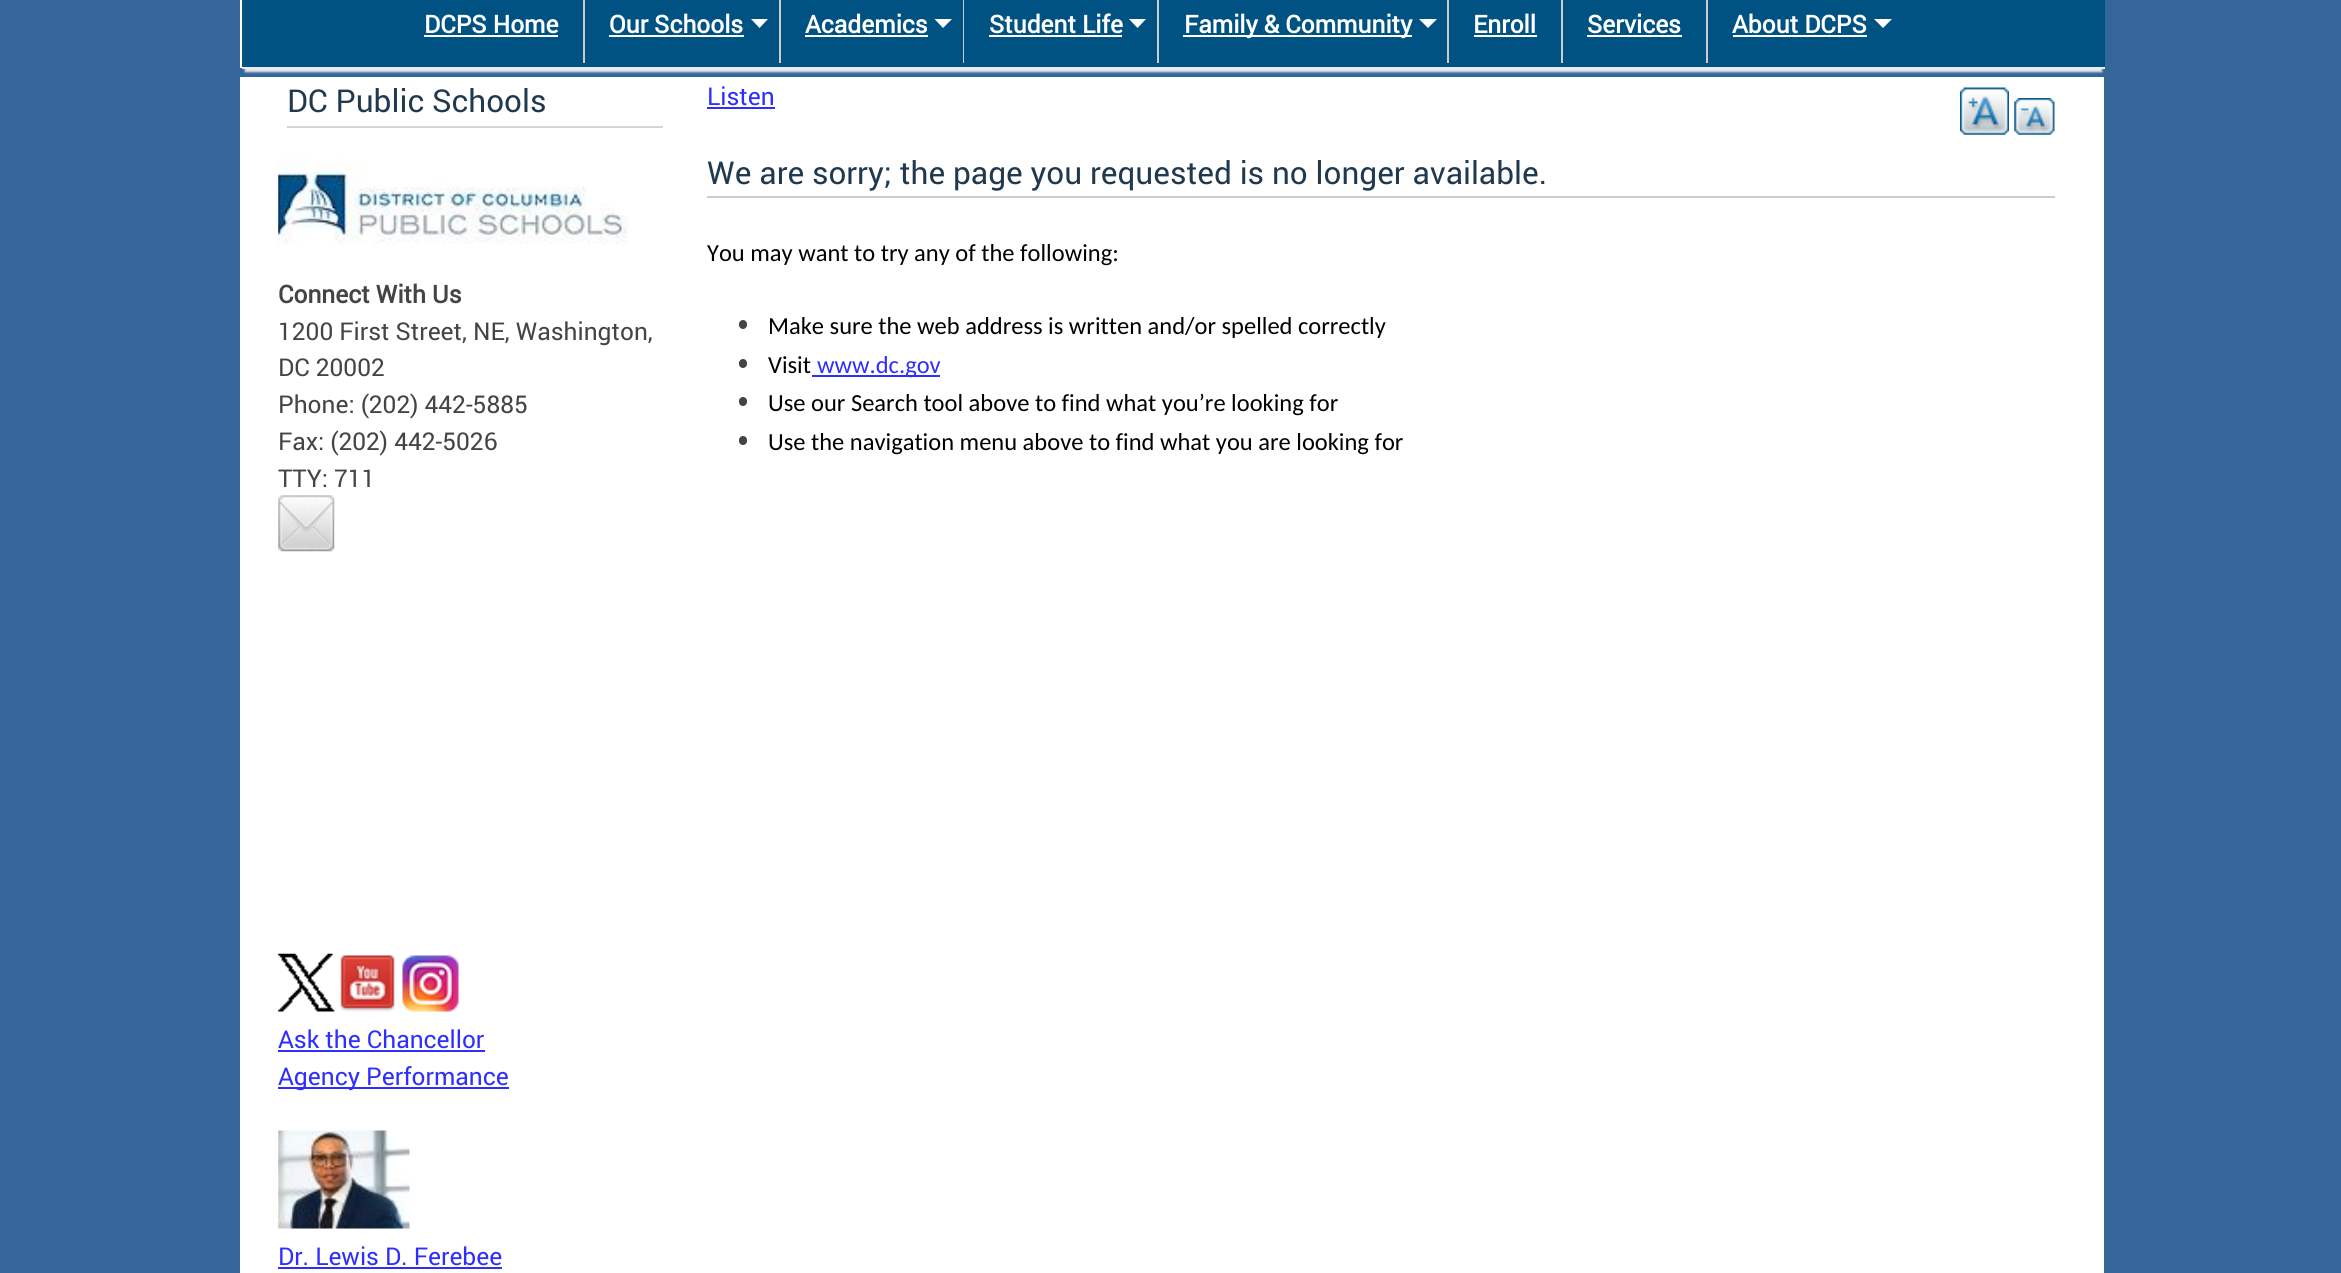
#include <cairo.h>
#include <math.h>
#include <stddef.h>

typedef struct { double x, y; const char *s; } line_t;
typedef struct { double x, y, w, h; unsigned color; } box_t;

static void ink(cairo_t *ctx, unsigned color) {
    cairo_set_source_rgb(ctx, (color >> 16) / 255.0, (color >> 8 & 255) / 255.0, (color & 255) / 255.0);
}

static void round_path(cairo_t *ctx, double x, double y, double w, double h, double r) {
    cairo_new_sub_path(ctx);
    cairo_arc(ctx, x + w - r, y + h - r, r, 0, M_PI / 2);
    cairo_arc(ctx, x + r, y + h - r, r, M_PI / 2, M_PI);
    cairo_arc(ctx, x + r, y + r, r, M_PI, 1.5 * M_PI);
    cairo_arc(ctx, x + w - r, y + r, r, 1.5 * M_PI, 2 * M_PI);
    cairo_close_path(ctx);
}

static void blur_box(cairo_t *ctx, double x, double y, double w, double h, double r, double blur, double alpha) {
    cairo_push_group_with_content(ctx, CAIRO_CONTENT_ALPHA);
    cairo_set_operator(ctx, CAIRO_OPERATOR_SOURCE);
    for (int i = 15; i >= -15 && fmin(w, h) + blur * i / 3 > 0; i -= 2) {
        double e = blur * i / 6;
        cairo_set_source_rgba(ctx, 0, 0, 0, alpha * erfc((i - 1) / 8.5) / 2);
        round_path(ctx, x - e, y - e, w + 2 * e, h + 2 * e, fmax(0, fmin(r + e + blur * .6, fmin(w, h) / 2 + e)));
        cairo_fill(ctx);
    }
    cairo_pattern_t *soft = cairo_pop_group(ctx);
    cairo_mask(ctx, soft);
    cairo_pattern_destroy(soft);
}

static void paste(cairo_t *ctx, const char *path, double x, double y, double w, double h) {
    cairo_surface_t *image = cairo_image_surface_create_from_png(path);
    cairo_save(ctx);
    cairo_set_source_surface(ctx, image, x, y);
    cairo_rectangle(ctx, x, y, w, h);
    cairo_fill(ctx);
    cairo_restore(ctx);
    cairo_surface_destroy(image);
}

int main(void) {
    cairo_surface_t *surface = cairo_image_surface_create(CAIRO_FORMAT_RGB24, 2341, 1273);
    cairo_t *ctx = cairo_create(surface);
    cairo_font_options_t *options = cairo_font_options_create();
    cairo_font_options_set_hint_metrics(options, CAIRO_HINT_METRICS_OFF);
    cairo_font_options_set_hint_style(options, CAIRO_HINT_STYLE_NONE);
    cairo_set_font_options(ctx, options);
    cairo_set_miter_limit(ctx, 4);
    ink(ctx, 0x346699);
    cairo_paint(ctx);
    ink(ctx, 0xFFFFFF);
    cairo_rectangle(ctx, 240, 0, 2, 68);
    cairo_fill(ctx);
    ink(ctx, 0xEBEBEB);
    blur_box(ctx, 245, -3, 1857, 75, 0, 1, 1);
    {
        static const box_t items[] = {
            {242, 0, 1863, 67, 0x005282},
            {242, 67, 1863, 2, 0xEBEBEB},
            {583, 0, 2, 63, 0xCCCCCC},
        };
        for (size_t i = 0; i < sizeof items / sizeof *items; i++) {
            ink(ctx, items[i].color);
            cairo_rectangle(ctx, items[i].x, items[i].y, items[i].w, items[i].h);
            cairo_fill(ctx);
        }
    }
    cairo_select_font_face(ctx, "Roboto", CAIRO_FONT_SLANT_NORMAL, CAIRO_FONT_WEIGHT_BOLD);
    cairo_set_font_size(ctx, 24.5);
    ink(ctx, 0xFFFFFF);
    cairo_move_to(ctx, 424, 33);
    cairo_show_text(ctx, "DCPS Home");
    cairo_rectangle(ctx, 424, 35, 134, 2);
    cairo_fill(ctx);
    ink(ctx, 0xCCCCCC);
    cairo_rectangle(ctx, 779, 0, 2, 63);
    cairo_fill(ctx);
    ink(ctx, 0xFFFFFF);
    cairo_move_to(ctx, 609, 33);
    cairo_show_text(ctx, "Our Schools");
    cairo_rectangle(ctx, 609, 35, 135, 2);
    cairo_fill(ctx);
    cairo_new_path(ctx);
    cairo_move_to(ctx, 751, 19);
    cairo_line_to(ctx, 768, 19);
    cairo_line_to(ctx, 759.5, 28);
    cairo_close_path(ctx);
    cairo_fill(ctx);
    ink(ctx, 0xCCCCCC);
    cairo_rectangle(ctx, 963, 0, 1, 63);
    cairo_fill(ctx);
    ink(ctx, 0xFFFFFF);
    cairo_move_to(ctx, 805, 33);
    cairo_show_text(ctx, "Academics");
    cairo_rectangle(ctx, 805, 35, 123, 2);
    cairo_fill(ctx);
    cairo_new_path(ctx);
    cairo_move_to(ctx, 934.5, 19);
    cairo_line_to(ctx, 952, 19);
    cairo_line_to(ctx, 943, 28);
    cairo_close_path(ctx);
    cairo_fill(ctx);
    ink(ctx, 0xCCCCCC);
    cairo_rectangle(ctx, 1157, 0, 2, 63);
    cairo_fill(ctx);
    ink(ctx, 0xFFFFFF);
    cairo_move_to(ctx, 989, 33);
    cairo_show_text(ctx, "Student Life");
    cairo_rectangle(ctx, 989, 35, 133, 2);
    cairo_fill(ctx);
    cairo_new_path(ctx);
    cairo_move_to(ctx, 1129, 19);
    cairo_line_to(ctx, 1146, 19);
    cairo_line_to(ctx, 1137.5, 28);
    cairo_close_path(ctx);
    cairo_fill(ctx);
    ink(ctx, 0xCCCCCC);
    cairo_rectangle(ctx, 1447, 0, 2, 63);
    cairo_fill(ctx);
    ink(ctx, 0xFFFFFF);
    cairo_rectangle(ctx, 1183, 35, 229, 2);
    cairo_fill(ctx);
    cairo_move_to(ctx, 1184, 33);
    cairo_show_text(ctx, "Family & Community");
    cairo_new_path(ctx);
    cairo_move_to(ctx, 1419, 19);
    cairo_line_to(ctx, 1437, 19);
    cairo_line_to(ctx, 1428, 28);
    cairo_close_path(ctx);
    cairo_fill(ctx);
    ink(ctx, 0xCCCCCC);
    cairo_rectangle(ctx, 1561, 0, 2, 63);
    cairo_fill(ctx);
    ink(ctx, 0xFFFFFF);
    cairo_move_to(ctx, 1473, 33);
    cairo_show_text(ctx, "Enroll");
    cairo_rectangle(ctx, 1474, 35, 63, 2);
    cairo_fill(ctx);
    ink(ctx, 0xCCCCCC);
    cairo_rectangle(ctx, 1706, 0, 2, 63);
    cairo_fill(ctx);
    ink(ctx, 0xFFFFFF);
    cairo_move_to(ctx, 1587, 33);
    cairo_show_text(ctx, "Services");
    cairo_rectangle(ctx, 1587, 35, 95, 2);
    cairo_fill(ctx);
    cairo_move_to(ctx, 1732, 33);
    cairo_show_text(ctx, "About DCPS");
    cairo_rectangle(ctx, 1733, 35, 134, 2);
    cairo_fill(ctx);
    cairo_new_path(ctx);
    cairo_move_to(ctx, 1874, 19);
    cairo_line_to(ctx, 1892, 19);
    cairo_line_to(ctx, 1883, 28);
    cairo_close_path(ctx);
    cairo_fill(ctx);
    cairo_rectangle(ctx, 240, 77, 1864, 1196);
    cairo_fill(ctx);
    ink(ctx, 0xD5D5D5);
    cairo_rectangle(ctx, 287, 126, 376, 2);
    cairo_fill(ctx);
    cairo_select_font_face(ctx, "Roboto", CAIRO_FONT_SLANT_NORMAL, CAIRO_FONT_WEIGHT_NORMAL);
    cairo_set_font_size(ctx, 31.5);
    ink(ctx, 0x20394F);
    cairo_move_to(ctx, 287, 112);
    cairo_show_text(ctx, "DC Public Schools");
    paste(ctx, "media/1.png", 278, 159, 350, 85);
    cairo_select_font_face(ctx, "Roboto", CAIRO_FONT_SLANT_NORMAL, CAIRO_FONT_WEIGHT_BOLD);
    cairo_set_font_size(ctx, 24.5);
    ink(ctx, 0x444444);
    cairo_move_to(ctx, 278, 303);
    cairo_show_text(ctx, "Connect With Us");
    cairo_select_font_face(ctx, "Roboto", CAIRO_FONT_SLANT_NORMAL, CAIRO_FONT_WEIGHT_NORMAL);
    {
        static const line_t items[] = {
            {278, 340, "1200 First Street, NE, Washington,"},
            {278, 376, "DC 20002"},
            {278, 413, "Phone: (202) 442-5885"},
            {278, 450, "Fax: (202) 442-5026"},
            {278, 487, "TTY: 711"},
        };
        for (size_t i = 0; i < sizeof items / sizeof *items; i++) {
            cairo_move_to(ctx, items[i].x, items[i].y);
            cairo_show_text(ctx, items[i].s);
        }
    }
    paste(ctx, "media/2.png", 278, 495, 57, 57);
    paste(ctx, "media/3.png", 278, 953, 57, 59);
    paste(ctx, "media/4.png", 339, 955, 57, 57);
    paste(ctx, "media/5.png", 402, 955, 57, 57);
    ink(ctx, 0x2E2EFF);
    cairo_move_to(ctx, 278, 1048);
    cairo_show_text(ctx, "Ask the Chancellor");
    cairo_rectangle(ctx, 278, 1050, 207, 2);
    cairo_fill(ctx);
    cairo_rectangle(ctx, 278, 1087, 231, 2);
    cairo_fill(ctx);
    cairo_move_to(ctx, 278, 1085);
    cairo_show_text(ctx, "Agency Performance");
    paste(ctx, "media/6.png", 278, 1130, 132, 99);
    cairo_move_to(ctx, 278, 1265);
    cairo_show_text(ctx, "Dr. Lewis D. Ferebee");
    cairo_rectangle(ctx, 278, 1267, 224, 2);
    cairo_fill(ctx);
    cairo_move_to(ctx, 707, 105);
    cairo_show_text(ctx, "Listen");
    cairo_rectangle(ctx, 707, 107, 68, 2);
    cairo_fill(ctx);
    paste(ctx, "media/7.png", 1960, 87, 49, 48);
    paste(ctx, "media/8.png", 2014, 98, 41, 37);
    ink(ctx, 0xCCCCCC);
    cairo_rectangle(ctx, 707, 196, 1348, 2);
    cairo_fill(ctx);
    cairo_set_font_size(ctx, 31.5);
    ink(ctx, 0x20394F);
    cairo_move_to(ctx, 707, 184);
    cairo_show_text(ctx, "We are sorry; the page you requested is no longer available.");
    cairo_select_font_face(ctx, "Carlito", CAIRO_FONT_SLANT_NORMAL, CAIRO_FONT_WEIGHT_NORMAL);
    cairo_set_font_size(ctx, 24.5);
    ink(ctx, 0x000000);
    cairo_move_to(ctx, 707, 261);
    cairo_show_text(ctx, "You may want to try any of the following:");
    ink(ctx, 0x444444);
    round_path(ctx, 739, 320, 8, 9, 4);
    cairo_fill(ctx);
    ink(ctx, 0x000000);
    cairo_move_to(ctx, 768, 334);
    cairo_show_text(ctx, "Make sure the web address is written and/or spelled correctly");
    ink(ctx, 0x444444);
    round_path(ctx, 739, 359, 8, 9, 4);
    cairo_fill(ctx);
    ink(ctx, 0x000000);
    cairo_move_to(ctx, 768, 373);
    cairo_show_text(ctx, "Visit");
    ink(ctx, 0x2E2EFF);
    cairo_rectangle(ctx, 812, 375, 128, 2);
    cairo_fill(ctx);
    cairo_move_to(ctx, 817, 373);
    cairo_show_text(ctx, "www.dc.gov");
    ink(ctx, 0x444444);
    round_path(ctx, 739, 397, 8, 9, 4);
    cairo_fill(ctx);
    ink(ctx, 0x000000);
    cairo_move_to(ctx, 768, 411);
    cairo_show_text(ctx, "Use our Search tool above to find what you’re looking for");
    ink(ctx, 0x444444);
    round_path(ctx, 739, 436, 8, 9, 4);
    cairo_fill(ctx);
    ink(ctx, 0x000000);
    cairo_move_to(ctx, 768, 450);
    cairo_show_text(ctx, "Use the navigation menu above to find what you are looking for");
    cairo_surface_write_to_png(surface, "image.png");
    cairo_font_options_destroy(options);
    cairo_destroy(ctx);
    cairo_surface_destroy(surface);
    return 0;
}
